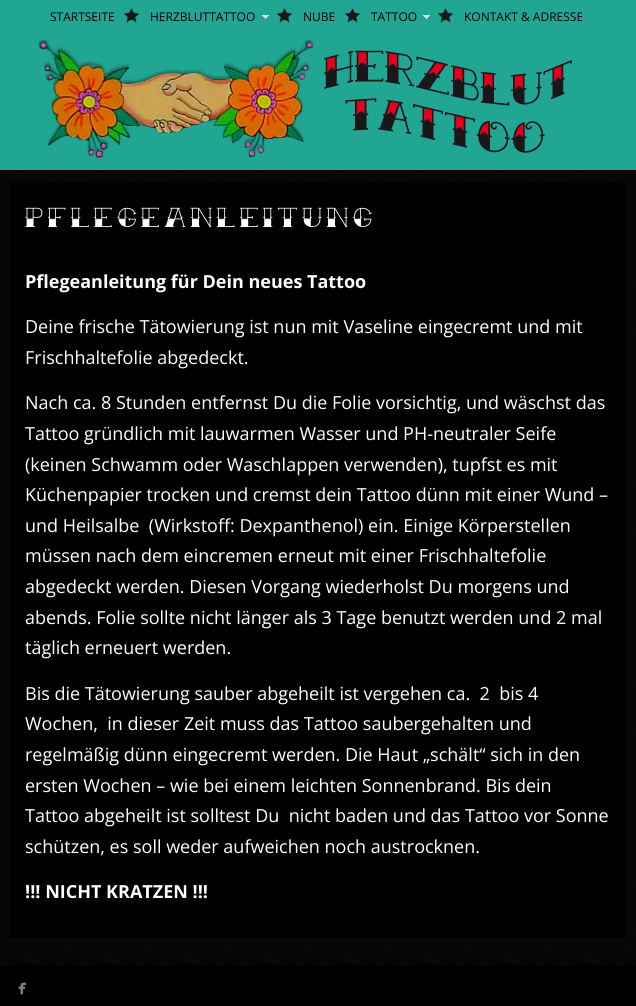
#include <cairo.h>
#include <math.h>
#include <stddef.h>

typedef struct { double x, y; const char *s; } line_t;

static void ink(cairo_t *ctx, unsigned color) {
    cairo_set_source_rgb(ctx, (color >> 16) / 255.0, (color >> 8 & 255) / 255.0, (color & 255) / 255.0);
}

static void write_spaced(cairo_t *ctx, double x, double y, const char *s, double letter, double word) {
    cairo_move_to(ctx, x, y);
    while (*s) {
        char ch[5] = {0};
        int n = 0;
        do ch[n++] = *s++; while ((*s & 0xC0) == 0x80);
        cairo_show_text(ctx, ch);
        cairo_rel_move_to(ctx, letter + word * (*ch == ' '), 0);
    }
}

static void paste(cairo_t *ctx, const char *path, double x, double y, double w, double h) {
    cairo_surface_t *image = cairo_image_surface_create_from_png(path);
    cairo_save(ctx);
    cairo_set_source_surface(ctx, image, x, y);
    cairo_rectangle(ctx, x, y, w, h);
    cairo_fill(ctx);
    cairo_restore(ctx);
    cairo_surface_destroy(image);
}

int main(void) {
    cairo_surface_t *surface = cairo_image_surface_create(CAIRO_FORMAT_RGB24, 636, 1006);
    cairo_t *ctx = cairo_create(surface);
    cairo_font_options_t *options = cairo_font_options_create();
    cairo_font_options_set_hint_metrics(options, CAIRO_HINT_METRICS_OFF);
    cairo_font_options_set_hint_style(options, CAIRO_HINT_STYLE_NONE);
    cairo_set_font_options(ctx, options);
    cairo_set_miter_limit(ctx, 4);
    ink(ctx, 0x000000);
    cairo_paint(ctx);
    paste(ctx, "media/1.png", 0, 170, 636, 795);
    ink(ctx, 0x21A694);
    cairo_rectangle(ctx, 0, 0, 636, 170);
    cairo_fill(ctx);
    cairo_select_font_face(ctx, "Open Sans", CAIRO_FONT_SLANT_NORMAL, CAIRO_FONT_WEIGHT_NORMAL);
    cairo_set_font_size(ctx, 12);
    ink(ctx, 0x000000);
    cairo_move_to(ctx, 50, 21);
    cairo_show_text(ctx, "STARTSEITE");
    paste(ctx, "media/2.png", 124, 8, 15, 15);
    cairo_move_to(ctx, 150, 21);
    cairo_show_text(ctx, "HERZBLUTTATTOO");
    paste(ctx, "media/3.png", 262, 15, 7, 4);
    paste(ctx, "media/2.png", 277, 8, 15, 15);
    cairo_move_to(ctx, 303, 21);
    cairo_show_text(ctx, "NUBE");
    paste(ctx, "media/2.png", 345, 8, 15, 15);
    cairo_move_to(ctx, 371, 21);
    cairo_show_text(ctx, "TATTOO");
    paste(ctx, "media/3.png", 423, 15, 7, 4);
    paste(ctx, "media/2.png", 438, 8, 15, 15);
    cairo_move_to(ctx, 464, 21);
    cairo_show_text(ctx, "KONTAKT & ADRESSE");
    paste(ctx, "media/4.png", 38, 40, 276, 118);
    paste(ctx, "media/5.png", 324, 50, 248, 103);
    cairo_rectangle(ctx, 10, 183, 616, 755);
    cairo_fill(ctx);
    cairo_select_font_face(ctx, "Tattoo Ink", CAIRO_FONT_SLANT_NORMAL, CAIRO_FONT_WEIGHT_NORMAL);
    cairo_set_font_size(ctx, 24);
    ink(ctx, 0xFFFFFF);
    write_spaced(ctx, 25, 227, "PFLEGEANLEITUNG", 4.75, 0);
    cairo_select_font_face(ctx, "Open Sans", CAIRO_FONT_SLANT_NORMAL, CAIRO_FONT_WEIGHT_BOLD);
    cairo_set_font_size(ctx, 18);
    cairo_move_to(ctx, 25, 288);
    cairo_show_text(ctx, "Pflegeanleitung für Dein neues Tattoo");
    cairo_select_font_face(ctx, "Open Sans", CAIRO_FONT_SLANT_NORMAL, CAIRO_FONT_WEIGHT_NORMAL);
    {
        static const line_t items[] = {
            {25, 333, "Deine frische Tätowierung ist nun mit Vaseline eingecremt und mit"},
            {25, 364, "Frischhaltefolie abgedeckt."},
            {25, 409, "Nach ca. 8 Stunden entfernst Du die Folie vorsichtig, und wäschst das"},
            {25, 440, "Tattoo gründlich mit lauwarmen Wasser und PH-neutraler Seife"},
            {25, 471, "(keinen Schwamm oder Waschlappen verwenden), tupfst es mit"},
            {25, 501, "Küchenpapier trocken und cremst dein Tattoo dünn mit einer Wund –"},
            {25, 532, "und Heilsalbe  (Wirkstoff: Dexpanthenol) ein. Einige Körperstellen"},
            {25, 562, "müssen nach dem eincremen erneut mit einer Frischhaltefolie"},
            {25, 593, "abgedeckt werden. Diesen Vorgang wiederholst Du morgens und"},
            {25, 624, "abends. Folie sollte nicht länger als 3 Tage benutzt werden und 2 mal"},
            {25, 654, "täglich erneuert werden."},
            {25, 700, "Bis die Tätowierung sauber abgeheilt ist vergehen ca.  2  bis 4"},
            {25, 730, "Wochen,  in dieser Zeit muss das Tattoo saubergehalten und"},
            {25, 761, "regelmäßig dünn eingecremt werden. Die Haut „schält“ sich in den"},
            {25, 792, "ersten Wochen – wie bei einem leichten Sonnenbrand. Bis dein"},
            {25, 822, "Tattoo abgeheilt ist solltest Du  nicht baden und das Tattoo vor Sonne"},
            {25, 853, "schützen, es soll weder aufweichen noch austrocknen."},
        };
        for (size_t i = 0; i < sizeof items / sizeof *items; i++) {
            cairo_move_to(ctx, items[i].x, items[i].y);
            cairo_show_text(ctx, items[i].s);
        }
    }
    cairo_select_font_face(ctx, "Open Sans", CAIRO_FONT_SLANT_NORMAL, CAIRO_FONT_WEIGHT_BOLD);
    cairo_move_to(ctx, 25, 898);
    cairo_show_text(ctx, "!!! NICHT KRATZEN !!!");
    paste(ctx, "media/6.png", 18, 982, 8, 13);
    cairo_surface_write_to_png(surface, "image.png");
    cairo_font_options_destroy(options);
    cairo_destroy(ctx);
    cairo_surface_destroy(surface);
    return 0;
}
